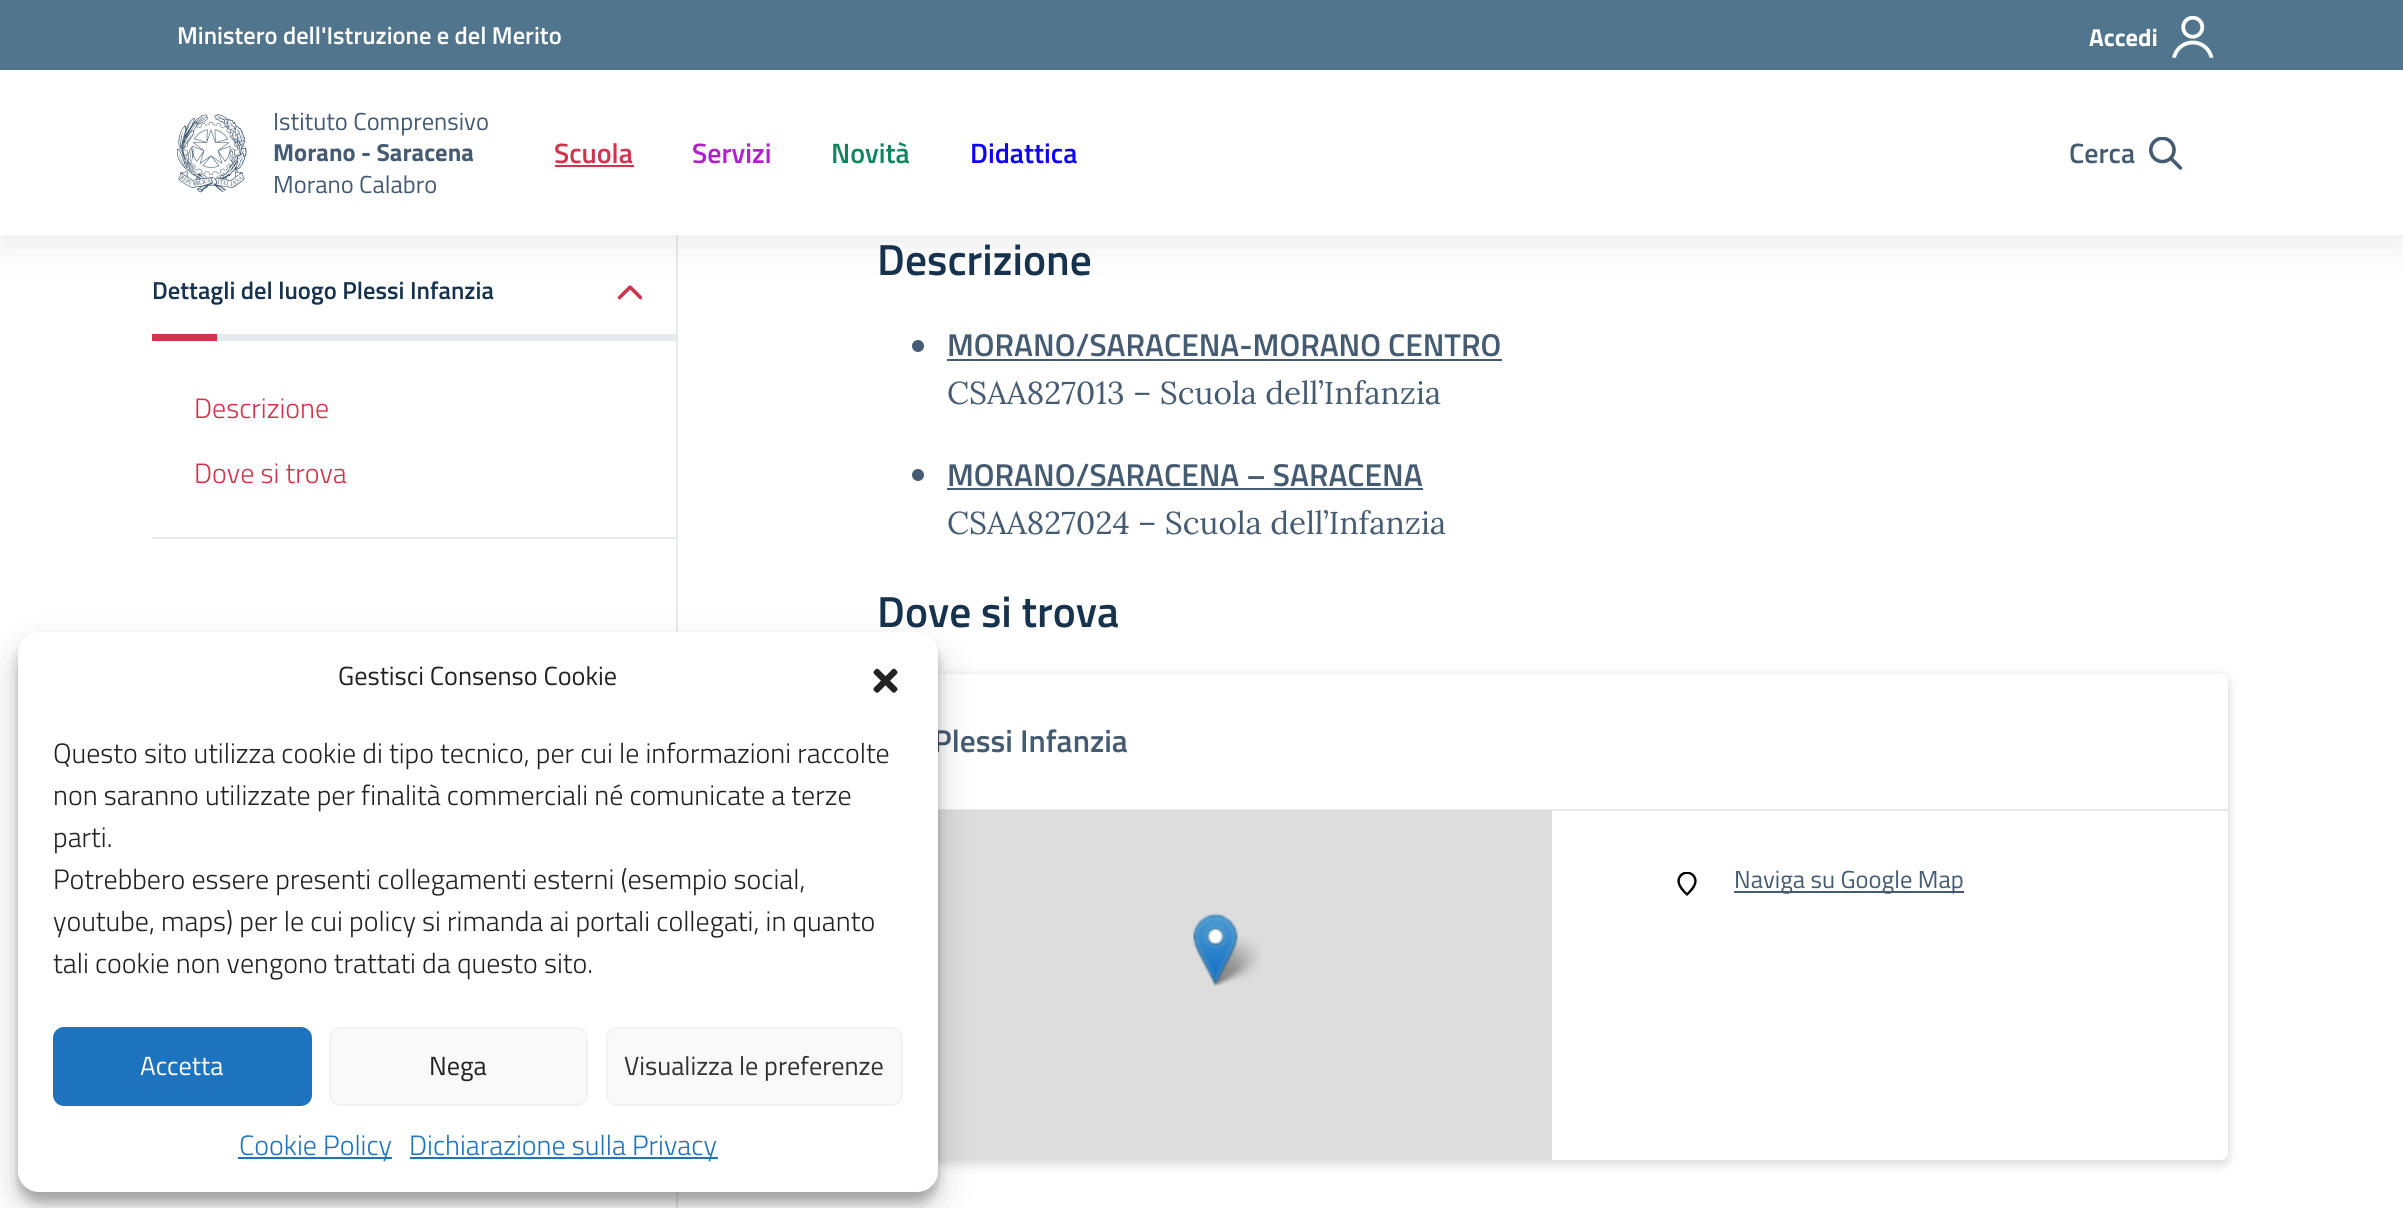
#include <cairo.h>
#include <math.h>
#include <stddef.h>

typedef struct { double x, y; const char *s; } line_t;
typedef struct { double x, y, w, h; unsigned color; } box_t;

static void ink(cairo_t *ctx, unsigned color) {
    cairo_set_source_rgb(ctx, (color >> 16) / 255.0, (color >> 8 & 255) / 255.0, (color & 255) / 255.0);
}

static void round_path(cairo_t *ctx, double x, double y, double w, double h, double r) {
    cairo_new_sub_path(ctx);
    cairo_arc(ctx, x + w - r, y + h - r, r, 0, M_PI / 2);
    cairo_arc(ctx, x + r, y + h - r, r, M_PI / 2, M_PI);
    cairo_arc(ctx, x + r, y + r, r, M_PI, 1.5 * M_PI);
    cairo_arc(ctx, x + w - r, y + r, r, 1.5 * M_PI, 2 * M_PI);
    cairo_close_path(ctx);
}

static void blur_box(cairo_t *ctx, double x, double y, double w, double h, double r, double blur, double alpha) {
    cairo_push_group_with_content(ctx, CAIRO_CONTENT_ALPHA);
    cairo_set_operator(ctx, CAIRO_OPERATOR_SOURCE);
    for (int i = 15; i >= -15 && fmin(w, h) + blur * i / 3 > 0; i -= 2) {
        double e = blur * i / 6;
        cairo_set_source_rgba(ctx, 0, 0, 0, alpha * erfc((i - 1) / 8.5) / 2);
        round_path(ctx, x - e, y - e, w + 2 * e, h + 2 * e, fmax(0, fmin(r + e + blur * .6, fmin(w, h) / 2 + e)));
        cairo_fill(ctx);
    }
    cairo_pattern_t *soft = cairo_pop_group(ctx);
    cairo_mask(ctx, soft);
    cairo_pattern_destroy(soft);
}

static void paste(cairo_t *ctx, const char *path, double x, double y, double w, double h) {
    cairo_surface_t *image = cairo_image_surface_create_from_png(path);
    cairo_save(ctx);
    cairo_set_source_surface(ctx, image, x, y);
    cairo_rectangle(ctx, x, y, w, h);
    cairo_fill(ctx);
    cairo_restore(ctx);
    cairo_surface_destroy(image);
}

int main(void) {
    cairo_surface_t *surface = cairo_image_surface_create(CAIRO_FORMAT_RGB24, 2403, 1208);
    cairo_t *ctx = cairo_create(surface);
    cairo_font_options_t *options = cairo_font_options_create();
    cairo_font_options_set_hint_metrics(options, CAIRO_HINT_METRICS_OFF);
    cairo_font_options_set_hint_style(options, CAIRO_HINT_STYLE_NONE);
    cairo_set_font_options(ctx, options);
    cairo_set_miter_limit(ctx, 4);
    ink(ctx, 0xFFFFFF);
    cairo_paint(ctx);
    paste(ctx, "media/4.png", 618, 285, 24, 15);
    {
        static const box_t items[] = {
            {217, 334, 460, 7, 0xE7EAED},
            {152, 537, 525, 2, 0xE7EAED},
            {676, 235, 2, 973, 0xE7EAED},
        };
        for (size_t i = 0; i < sizeof items / sizeof *items; i++) {
            ink(ctx, items[i].color);
            cairo_rectangle(ctx, items[i].x, items[i].y, items[i].w, items[i].h);
            cairo_fill(ctx);
        }
    }
    ink(ctx, 0x000000);
    blur_box(ctx, 0, 4, 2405, 234, 0, 21.5, 0.1);
    ink(ctx, 0xFFFFFF);
    cairo_rectangle(ctx, 0, 70, 2403, 165);
    cairo_fill(ctx);
    ink(ctx, 0x51758D);
    cairo_rectangle(ctx, 0, 0, 2403, 70);
    cairo_fill(ctx);
    cairo_select_font_face(ctx, "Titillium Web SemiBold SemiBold", CAIRO_FONT_SLANT_NORMAL, CAIRO_FONT_WEIGHT_NORMAL);
    cairo_set_font_size(ctx, 24.5);
    ink(ctx, 0xFFFFFF);
    cairo_move_to(ctx, 177, 44);
    cairo_show_text(ctx, "Ministero dell'Istruzione e del Merito");
    cairo_select_font_face(ctx, "Titillium Web", CAIRO_FONT_SLANT_NORMAL, CAIRO_FONT_WEIGHT_BOLD);
    cairo_move_to(ctx, 2089, 46);
    cairo_show_text(ctx, "Accedi");
    paste(ctx, "media/1.png", 2172, 16, 42, 42);
    paste(ctx, "media/2.png", 177, 114, 70, 79);
    cairo_select_font_face(ctx, "Titillium Web", CAIRO_FONT_SLANT_NORMAL, CAIRO_FONT_WEIGHT_NORMAL);
    cairo_set_font_size(ctx, 24.6);
    ink(ctx, 0x455B71);
    cairo_move_to(ctx, 273, 130);
    cairo_show_text(ctx, "Istituto Comprensivo");
    cairo_select_font_face(ctx, "Titillium Web", CAIRO_FONT_SLANT_NORMAL, CAIRO_FONT_WEIGHT_BOLD);
    cairo_move_to(ctx, 273, 161);
    cairo_show_text(ctx, "Morano - Saracena");
    cairo_select_font_face(ctx, "Titillium Web", CAIRO_FONT_SLANT_NORMAL, CAIRO_FONT_WEIGHT_NORMAL);
    cairo_move_to(ctx, 273, 193);
    cairo_show_text(ctx, "Morano Calabro");
    cairo_select_font_face(ctx, "Titillium Web SemiBold SemiBold", CAIRO_FONT_SLANT_NORMAL, CAIRO_FONT_WEIGHT_NORMAL);
    cairo_set_font_size(ctx, 28);
    ink(ctx, 0xD1344C);
    cairo_move_to(ctx, 554, 163);
    cairo_show_text(ctx, "Scuola");
    cairo_rectangle(ctx, 555, 165, 79, 2);
    cairo_fill(ctx);
    ink(ctx, 0xB21DD0);
    cairo_move_to(ctx, 692, 163);
    cairo_show_text(ctx, "Servizi");
    ink(ctx, 0x0E865C);
    cairo_move_to(ctx, 831, 163);
    cairo_show_text(ctx, "Novità");
    ink(ctx, 0x0D00FF);
    cairo_move_to(ctx, 970, 163);
    cairo_show_text(ctx, "Didattica");
    ink(ctx, 0x455B71);
    cairo_move_to(ctx, 2069, 163);
    cairo_show_text(ctx, "Cerca");
    paste(ctx, "media/3.png", 2149, 137, 33, 33);
    cairo_set_font_size(ctx, 24.6);
    ink(ctx, 0x17324D);
    cairo_move_to(ctx, 152, 299);
    cairo_show_text(ctx, "Dettagli del luogo Plessi Infanzia");
    ink(ctx, 0xD1344C);
    cairo_rectangle(ctx, 152, 334, 65, 7);
    cairo_fill(ctx);
    cairo_select_font_face(ctx, "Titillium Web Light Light", CAIRO_FONT_SLANT_NORMAL, CAIRO_FONT_WEIGHT_NORMAL);
    cairo_set_font_size(ctx, 28);
    cairo_move_to(ctx, 194, 418);
    cairo_show_text(ctx, "Descrizione");
    cairo_move_to(ctx, 194, 483);
    cairo_show_text(ctx, "Dove si trova");
    cairo_select_font_face(ctx, "Titillium Web SemiBold SemiBold", CAIRO_FONT_SLANT_NORMAL, CAIRO_FONT_WEIGHT_NORMAL);
    cairo_set_font_size(ctx, 43.5);
    ink(ctx, 0x17324D);
    cairo_move_to(ctx, 877, 275);
    cairo_show_text(ctx, "Descrizione");
    ink(ctx, 0x455B71);
    cairo_new_path(ctx);
    cairo_arc(ctx, 918, 346, 6, 0, 2 * M_PI);
    cairo_fill(ctx);
    cairo_set_font_size(ctx, 31.6);
    cairo_move_to(ctx, 947, 356);
    cairo_show_text(ctx, "MORANO/SARACENA-MORANO CENTRO");
    cairo_rectangle(ctx, 947, 359, 555, 2);
    cairo_fill(ctx);
    cairo_select_font_face(ctx, "Lora", CAIRO_FONT_SLANT_NORMAL, CAIRO_FONT_WEIGHT_NORMAL);
    cairo_move_to(ctx, 947, 404);
    cairo_show_text(ctx, "CSAA827013 – Scuola dell’Infanzia");
    cairo_new_path(ctx);
    cairo_arc(ctx, 918, 475, 6, 0, 2 * M_PI);
    cairo_fill(ctx);
    cairo_select_font_face(ctx, "Titillium Web SemiBold SemiBold", CAIRO_FONT_SLANT_NORMAL, CAIRO_FONT_WEIGHT_NORMAL);
    cairo_move_to(ctx, 947, 486);
    cairo_show_text(ctx, "MORANO/SARACENA – SARACENA");
    cairo_rectangle(ctx, 947, 488, 476, 2);
    cairo_fill(ctx);
    cairo_select_font_face(ctx, "Lora", CAIRO_FONT_SLANT_NORMAL, CAIRO_FONT_WEIGHT_NORMAL);
    cairo_move_to(ctx, 947, 534);
    cairo_show_text(ctx, "CSAA827024 – Scuola dell’Infanzia");
    cairo_select_font_face(ctx, "Titillium Web SemiBold SemiBold", CAIRO_FONT_SLANT_NORMAL, CAIRO_FONT_WEIGHT_NORMAL);
    cairo_set_font_size(ctx, 43.5);
    ink(ctx, 0x17324D);
    cairo_move_to(ctx, 877, 627);
    cairo_show_text(ctx, "Dove si trova");
    ink(ctx, 0x000000);
    blur_box(ctx, 877, 677, 1351, 487, 7, 6, 0.17);
    ink(ctx, 0xFFFFFF);
    round_path(ctx, 877, 674, 1351, 486, 7);
    cairo_fill(ctx);
    ink(ctx, 0xE7EAED);
    cairo_rectangle(ctx, 938, 809, 1290, 2);
    cairo_fill(ctx);
    cairo_set_font_size(ctx, 31.6);
    ink(ctx, 0x455B71);
    cairo_move_to(ctx, 933, 752);
    cairo_show_text(ctx, "Plessi Infanzia");
    ink(ctx, 0xDDDDDD);
    cairo_rectangle(ctx, 938, 810, 614, 350);
    cairo_fill(ctx);
    paste(ctx, "media/6.png", 1209, 936, 52, 50);
    paste(ctx, "media/5.png", 1193, 913, 45, 73);
    paste(ctx, "media/7.png", 1677, 872, 20, 24);
    ink(ctx, 0x455B71);
    cairo_rectangle(ctx, 1734, 891, 230, 2);
    cairo_fill(ctx);
    cairo_select_font_face(ctx, "Titillium Web", CAIRO_FONT_SLANT_NORMAL, CAIRO_FONT_WEIGHT_NORMAL);
    cairo_set_font_size(ctx, 24.6);
    cairo_move_to(ctx, 1734, 888);
    cairo_show_text(ctx, "Naviga su Google Map");
    ink(ctx, 0x000000);
    blur_box(ctx, 18, 642, 920, 560, 21, 5, 0.23);
    blur_box(ctx, 18, 649, 920, 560, 21, 17.5, 0.19);
    ink(ctx, 0xFFFFFF);
    round_path(ctx, 18, 632, 920, 560, 21);
    cairo_fill(ctx);
    cairo_set_font_size(ctx, 26.25);
    ink(ctx, 0x222222);
    cairo_move_to(ctx, 338, 685);
    cairo_show_text(ctx, "Gestisci Consenso Cookie");
    paste(ctx, "media/8.png", 873, 668, 25, 25);
    cairo_select_font_face(ctx, "Titillium Web Light Light", CAIRO_FONT_SLANT_NORMAL, CAIRO_FONT_WEIGHT_NORMAL);
    cairo_set_font_size(ctx, 28);
    {
        static const line_t items[] = {
            {53, 763, "Questo sito utilizza cookie di tipo tecnico, per cui le informazioni raccolte"},
            {53, 805, "non saranno utilizzate per finalità commerciali né comunicate a terze"},
            {53, 847, "parti."},
            {53, 889, "Potrebbero essere presenti collegamenti esterni (esempio social,"},
            {53, 931, "youtube, maps) per le cui policy si rimanda ai portali collegati, in quanto"},
            {53, 973, "tali cookie non vengono trattati da questo sito."},
        };
        for (size_t i = 0; i < sizeof items / sizeof *items; i++) {
            cairo_move_to(ctx, items[i].x, items[i].y);
            cairo_show_text(ctx, items[i].s);
        }
    }
    ink(ctx, 0x1E73BE);
    round_path(ctx, 54, 1028, 257, 77, 10);
    cairo_fill_preserve(ctx);
    cairo_stroke(ctx);
    cairo_select_font_face(ctx, "Titillium Web", CAIRO_FONT_SLANT_NORMAL, CAIRO_FONT_WEIGHT_NORMAL);
    cairo_set_font_size(ctx, 26.25);
    ink(ctx, 0xFFFFFF);
    cairo_move_to(ctx, 140, 1075);
    cairo_show_text(ctx, "Accetta");
    ink(ctx, 0xF9F9F9);
    round_path(ctx, 330, 1028, 257, 77, 10);
    cairo_fill_preserve(ctx);
    ink(ctx, 0xF2F2F2);
    cairo_stroke(ctx);
    ink(ctx, 0x222222);
    cairo_move_to(ctx, 429, 1075);
    cairo_show_text(ctx, "Nega");
    ink(ctx, 0xF9F9F9);
    round_path(ctx, 607, 1028, 295, 77, 10);
    cairo_fill_preserve(ctx);
    ink(ctx, 0xF2F2F2);
    cairo_stroke(ctx);
    ink(ctx, 0x333333);
    cairo_move_to(ctx, 624, 1075);
    cairo_show_text(ctx, "Visualizza le preferenze");
    ink(ctx, 0x1E73BE);
    cairo_rectangle(ctx, 238, 1157, 154, 2);
    cairo_fill(ctx);
    cairo_select_font_face(ctx, "Titillium Web Light Light", CAIRO_FONT_SLANT_NORMAL, CAIRO_FONT_WEIGHT_NORMAL);
    cairo_set_font_size(ctx, 28);
    cairo_move_to(ctx, 239, 1155);
    cairo_show_text(ctx, "Cookie Policy");
    cairo_rectangle(ctx, 410, 1157, 308, 2);
    cairo_fill(ctx);
    cairo_move_to(ctx, 409, 1155);
    cairo_show_text(ctx, "Dichiarazione sulla Privacy");
    cairo_surface_write_to_png(surface, "image.png");
    cairo_font_options_destroy(options);
    cairo_destroy(ctx);
    cairo_surface_destroy(surface);
    return 0;
}
